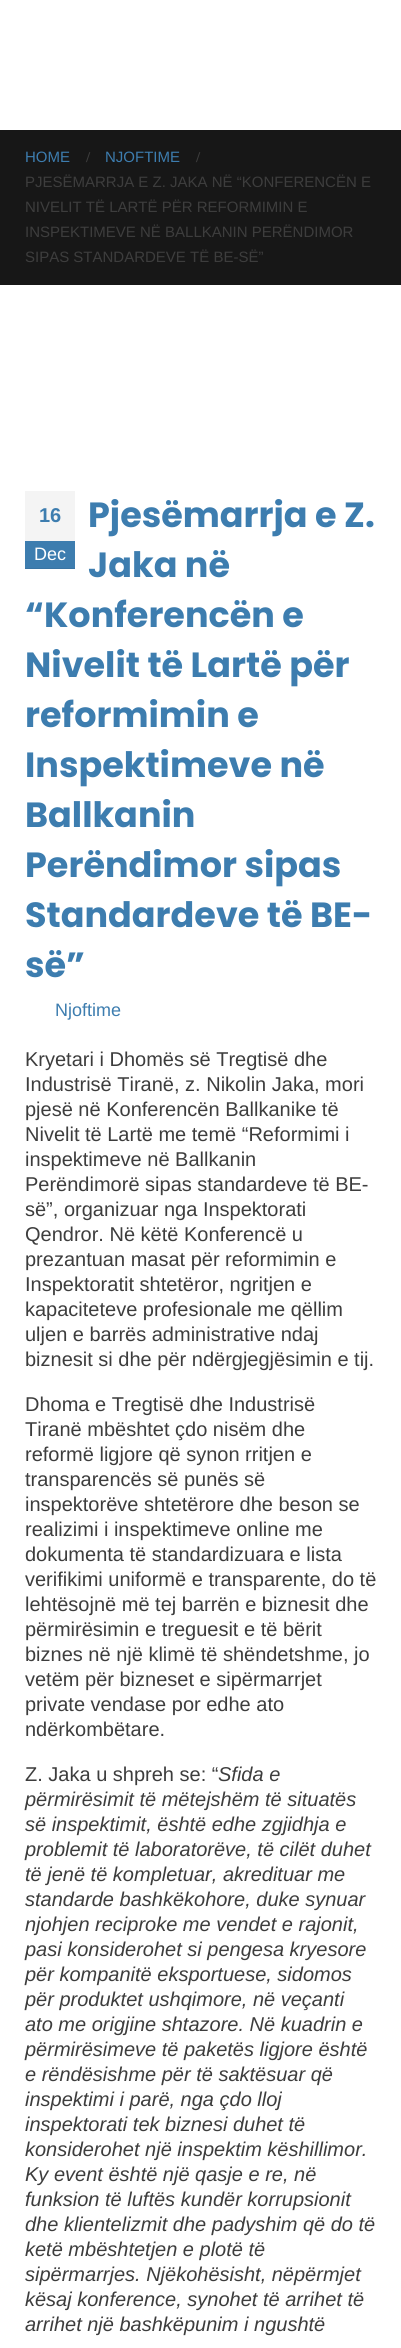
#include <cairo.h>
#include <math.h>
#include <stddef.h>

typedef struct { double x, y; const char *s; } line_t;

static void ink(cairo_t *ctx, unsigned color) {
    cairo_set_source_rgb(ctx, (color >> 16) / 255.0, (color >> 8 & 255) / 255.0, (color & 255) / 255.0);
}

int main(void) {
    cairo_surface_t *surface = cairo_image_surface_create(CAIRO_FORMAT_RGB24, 401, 2348);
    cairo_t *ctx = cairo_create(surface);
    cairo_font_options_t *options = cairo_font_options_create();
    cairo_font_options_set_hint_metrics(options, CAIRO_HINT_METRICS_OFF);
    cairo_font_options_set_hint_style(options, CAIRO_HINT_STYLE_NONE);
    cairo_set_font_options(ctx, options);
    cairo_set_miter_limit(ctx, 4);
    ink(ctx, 0xFFFFFF);
    cairo_paint(ctx);
    ink(ctx, 0x171717);
    cairo_rectangle(ctx, 0, 130, 401, 155);
    cairo_fill(ctx);
    cairo_select_font_face(ctx, "Liberation Sans", CAIRO_FONT_SLANT_NORMAL, CAIRO_FONT_WEIGHT_NORMAL);
    cairo_set_font_size(ctx, 15);
    ink(ctx, 0x3D7DAF);
    cairo_move_to(ctx, 25, 162);
    cairo_show_text(ctx, "HOME");
    cairo_select_font_face(ctx, "Liberation Serif", CAIRO_FONT_SLANT_NORMAL, CAIRO_FONT_WEIGHT_BOLD);
    ink(ctx, 0x3D3D3D);
    cairo_move_to(ctx, 86, 162);
    cairo_show_text(ctx, "/");
    cairo_select_font_face(ctx, "Liberation Sans", CAIRO_FONT_SLANT_NORMAL, CAIRO_FONT_WEIGHT_NORMAL);
    ink(ctx, 0x3D7DAF);
    cairo_move_to(ctx, 105, 162);
    cairo_show_text(ctx, "NJOFTIME");
    cairo_select_font_face(ctx, "Liberation Serif", CAIRO_FONT_SLANT_NORMAL, CAIRO_FONT_WEIGHT_BOLD);
    ink(ctx, 0x3D3D3D);
    cairo_move_to(ctx, 196, 162);
    cairo_show_text(ctx, "/");
    cairo_select_font_face(ctx, "Liberation Sans", CAIRO_FONT_SLANT_NORMAL, CAIRO_FONT_WEIGHT_NORMAL);
    {
        static const line_t items[] = {
            {25, 187, "PJESËMARRJA E Z. JAKA NË “KONFERENCËN E"},
            {25, 212, "NIVELIT TË LARTË PËR REFORMIMIN E"},
            {25, 237, "INSPEKTIMEVE NË BALLKANIN PERËNDIMOR"},
            {25, 262, "SIPAS STANDARDEVE TË BE-SË”"},
        };
        for (size_t i = 0; i < sizeof items / sizeof *items; i++) {
            cairo_move_to(ctx, items[i].x, items[i].y);
            cairo_show_text(ctx, items[i].s);
        }
    }
    cairo_select_font_face(ctx, "Poppins", CAIRO_FONT_SLANT_NORMAL, CAIRO_FONT_WEIGHT_BOLD);
    cairo_set_font_size(ctx, 35);
    ink(ctx, 0x3D7DAF);
    {
        static const line_t items[] = {
            {88, 527, "Pjesëmarrja e Z."},
            {88, 577, "Jaka në"},
            {25, 627, "“Konferencën e"},
            {25, 677, "Nivelit të Lartë për"},
            {25, 727, "reformimin e"},
            {25, 777, "Inspektimeve në"},
            {25, 827, "Ballkanin"},
            {25, 877, "Perëndimor sipas"},
            {25, 927, "Standardeve të BE-"},
            {25, 977, "së”"},
        };
        for (size_t i = 0; i < sizeof items / sizeof *items; i++) {
            cairo_move_to(ctx, items[i].x, items[i].y);
            cairo_show_text(ctx, items[i].s);
        }
    }
    cairo_select_font_face(ctx, "Liberation Sans", CAIRO_FONT_SLANT_NORMAL, CAIRO_FONT_WEIGHT_NORMAL);
    cairo_set_font_size(ctx, 18);
    cairo_move_to(ctx, 55, 1016);
    cairo_show_text(ctx, "Njoftime");
    cairo_set_font_size(ctx, 20);
    ink(ctx, 0x3D3D3D);
    {
        static const line_t items[] = {
            {25, 1066, "Kryetari i Dhomës së Tregtisë dhe"},
            {25, 1091, "Industrisë Tiranë, z. Nikolin Jaka, mori"},
            {25, 1116, "pjesë në Konferencën Ballkanike të"},
            {25, 1141, "Nivelit të Lartë me temë “Reformimi i"},
            {25, 1166, "inspektimeve në Ballkanin"},
            {25, 1191, "Perëndimorë sipas standardeve të BE-"},
            {25, 1216, "së”, organizuar nga Inspektorati"},
            {25, 1241, "Qendror. Në këtë Konferencë u"},
            {25, 1266, "prezantuan masat për reformimin e"},
            {25, 1291, "Inspektoratit shtetëror, ngritjen e"},
            {25, 1316, "kapaciteteve profesionale me qëllim"},
            {25, 1341, "uljen e barrës administrative ndaj"},
            {25, 1366, "biznesit si dhe për ndërgjegjësimin e tij."},
            {25, 1411, "Dhoma e Tregtisë dhe Industrisë"},
            {25, 1436, "Tiranë mbështet çdo nisëm dhe"},
            {25, 1461, "reformë ligjore që synon rritjen e"},
            {25, 1486, "transparencës së punës së"},
            {25, 1511, "inspektorëve shtetërore dhe beson se"},
            {25, 1536, "realizimi i inspektimeve online me"},
            {25, 1561, "dokumenta të standardizuara e lista"},
            {25, 1586, "verifikimi uniformë e transparente, do të"},
            {25, 1611, "lehtësojnë më tej barrën e biznesit dhe"},
            {25, 1636, "përmirësimin e treguesit e të bërit"},
            {25, 1661, "biznes në një klimë të shëndetshme, jo"},
            {25, 1686, "vetëm për bizneset e sipërmarrjet"},
            {25, 1711, "private vendase por edhe ato"},
            {25, 1736, "ndërkombëtare."},
            {25, 1781, "Z. Jaka u shpreh se: “"},
        };
        for (size_t i = 0; i < sizeof items / sizeof *items; i++) {
            cairo_move_to(ctx, items[i].x, items[i].y);
            cairo_show_text(ctx, items[i].s);
        }
    }
    cairo_select_font_face(ctx, "Liberation Sans", CAIRO_FONT_SLANT_ITALIC, CAIRO_FONT_WEIGHT_NORMAL);
    {
        static const line_t items[] = {
            {218, 1781, "Sfida e"},
            {25, 1806, "përmirësimit të mëtejshëm të situatës"},
            {25, 1831, "së inspektimit, është edhe zgjidhja e"},
            {25, 1856, "problemit të laboratorëve, të cilët duhet"},
            {25, 1881, "të jenë të kompletuar, akredituar me"},
            {25, 1906, "standarde bashkëkohore, duke synuar"},
            {25, 1931, "njohjen reciproke me vendet e rajonit,"},
            {25, 1956, "pasi konsiderohet si pengesa kryesore"},
            {25, 1981, "për kompanitë eksportuese, sidomos"},
            {25, 2006, "për produktet ushqimore, në veçanti"},
            {25, 2031, "ato me origjine shtazore. Në kuadrin e"},
            {25, 2056, "përmirësimeve të paketës ligjore është"},
            {25, 2081, "e rëndësishme për të saktësuar që"},
            {25, 2106, "inspektimi i parë, nga çdo lloj"},
            {25, 2131, "inspektorati tek biznesi duhet të"},
            {25, 2156, "konsiderohet një inspektim këshillimor."},
            {25, 2181, "Ky event është një qasje e re, në"},
            {25, 2206, "funksion të luftës kundër korrupsionit"},
            {25, 2231, "dhe klientelizmit dhe padyshim që do të"},
            {25, 2256, "ketë mbështetjen e plotë të"},
            {25, 2281, "sipërmarrjes. Njëkohësisht, nëpërmjet"},
            {25, 2306, "kësaj konference, synohet të arrihet të"},
            {25, 2331, "arrihet një bashkëpunim i ngushtë"},
        };
        for (size_t i = 0; i < sizeof items / sizeof *items; i++) {
            cairo_move_to(ctx, items[i].x, items[i].y);
            cairo_show_text(ctx, items[i].s);
        }
    }
    ink(ctx, 0xF4F4F4);
    cairo_rectangle(ctx, 25, 491, 50, 50);
    cairo_fill(ctx);
    cairo_select_font_face(ctx, "Liberation Sans", CAIRO_FONT_SLANT_NORMAL, CAIRO_FONT_WEIGHT_BOLD);
    ink(ctx, 0x3D7DAF);
    cairo_move_to(ctx, 39, 522);
    cairo_show_text(ctx, "16");
    cairo_rectangle(ctx, 25, 541, 50, 27);
    cairo_fill(ctx);
    ink(ctx, 0x3974A3);
    cairo_rectangle(ctx, 25, 568, 50, 1);
    cairo_fill(ctx);
    cairo_select_font_face(ctx, "Liberation Sans", CAIRO_FONT_SLANT_NORMAL, CAIRO_FONT_WEIGHT_NORMAL);
    cairo_set_font_size(ctx, 18);
    ink(ctx, 0xFFFFFF);
    cairo_move_to(ctx, 34, 560);
    cairo_show_text(ctx, "Dec");
    cairo_surface_write_to_png(surface, "image.png");
    cairo_font_options_destroy(options);
    cairo_destroy(ctx);
    cairo_surface_destroy(surface);
    return 0;
}
